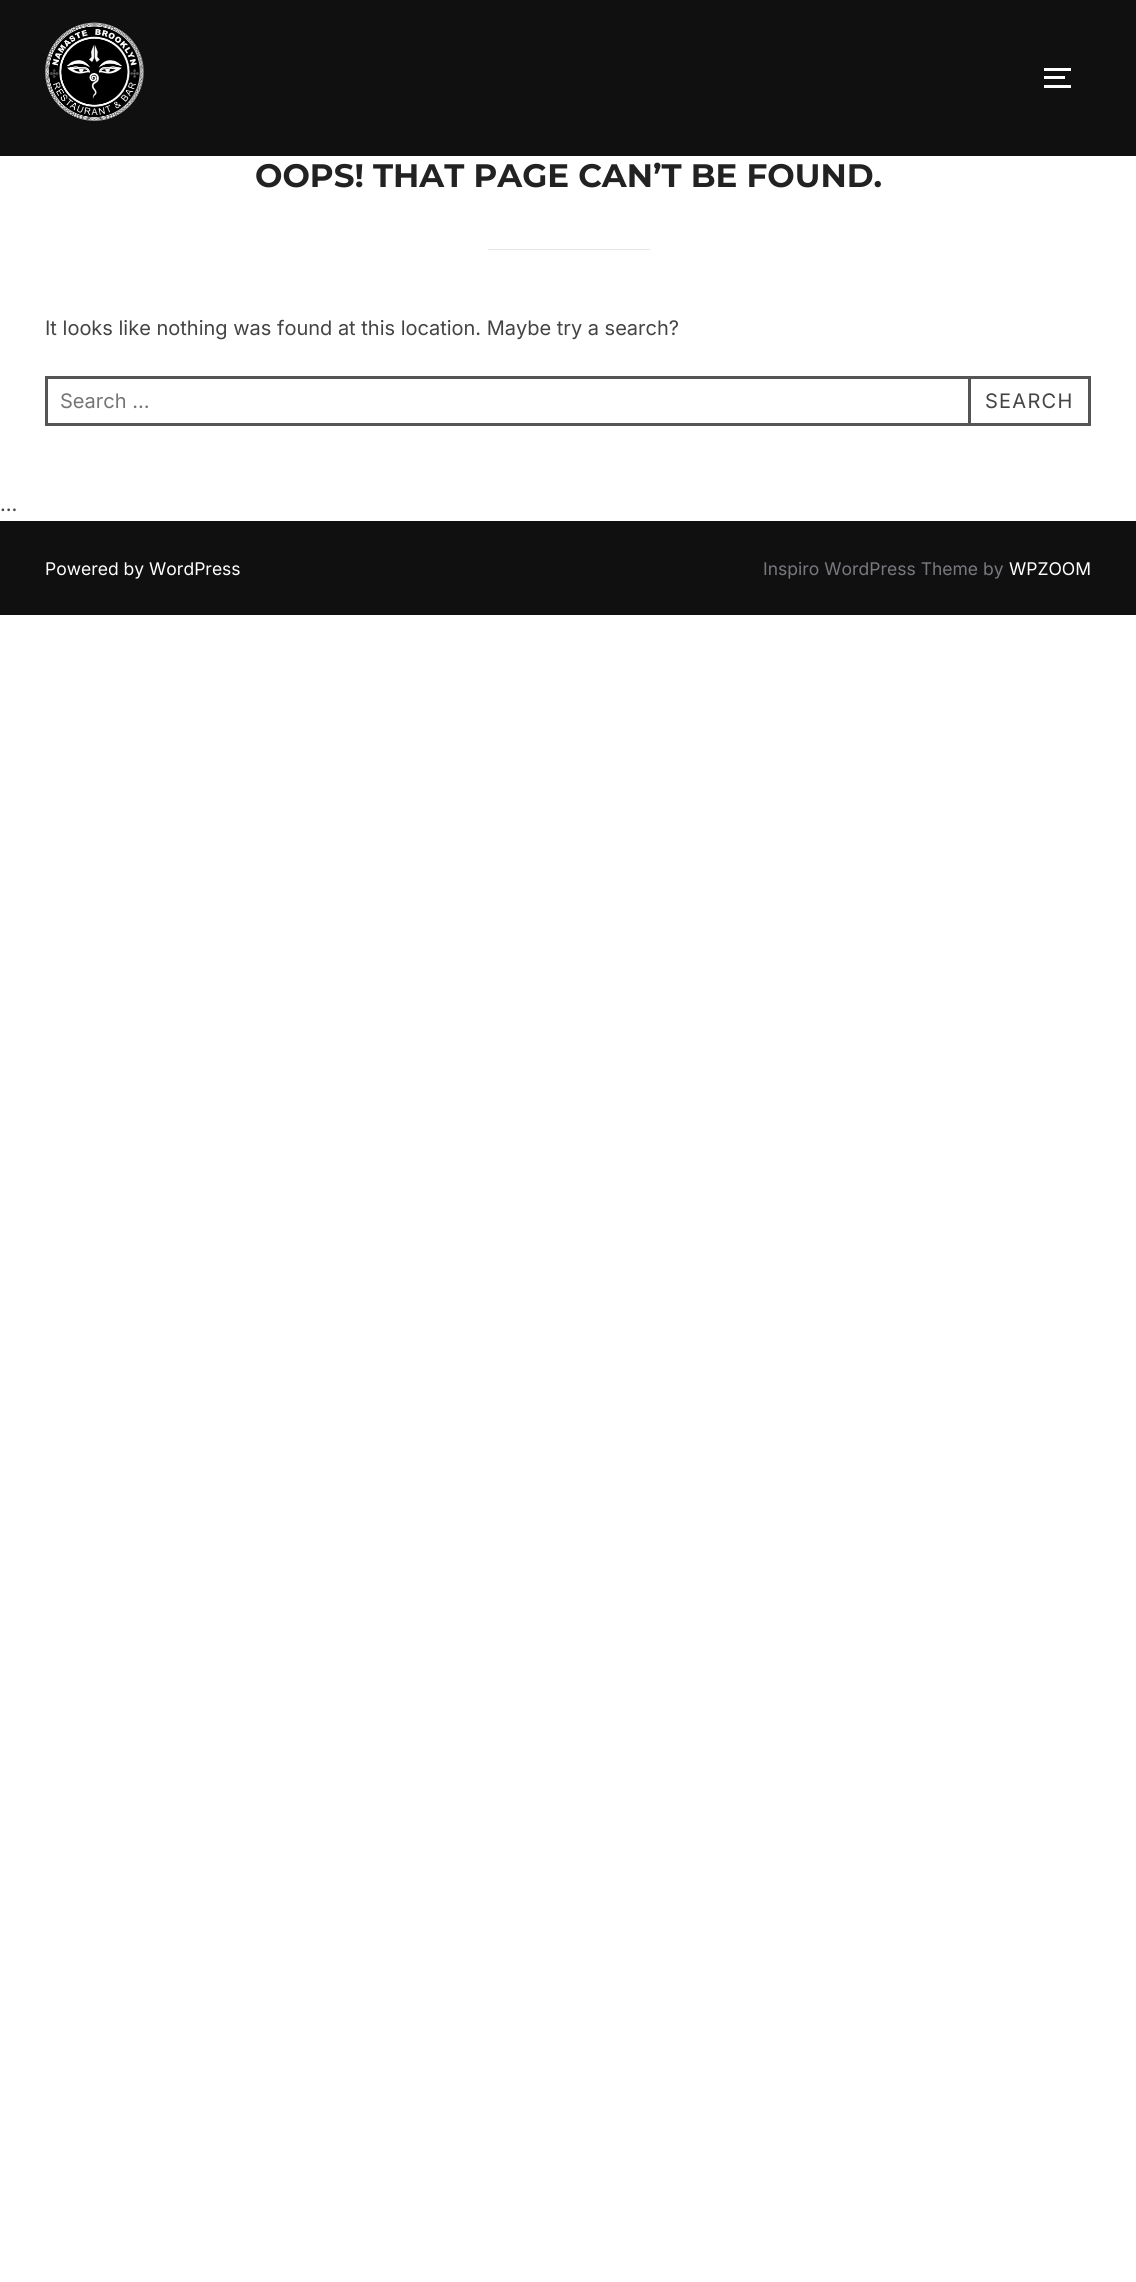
#include <cairo.h>
#include <math.h>
#include <stddef.h>

typedef struct { double x, y, w, h; unsigned color; } box_t;

static void ink(cairo_t *ctx, unsigned color) {
    cairo_set_source_rgb(ctx, (color >> 16) / 255.0, (color >> 8 & 255) / 255.0, (color & 255) / 255.0);
}

static void write_spaced(cairo_t *ctx, double x, double y, const char *s, double letter, double word) {
    cairo_move_to(ctx, x, y);
    while (*s) {
        char ch[5] = {0};
        int n = 0;
        do ch[n++] = *s++; while ((*s & 0xC0) == 0x80);
        cairo_show_text(ctx, ch);
        cairo_rel_move_to(ctx, letter + word * (*ch == ' '), 0);
    }
}

static void paste(cairo_t *ctx, const char *path, double x, double y, double w, double h) {
    cairo_surface_t *image = cairo_image_surface_create_from_png(path);
    cairo_save(ctx);
    cairo_set_source_surface(ctx, image, x, y);
    cairo_rectangle(ctx, x, y, w, h);
    cairo_fill(ctx);
    cairo_restore(ctx);
    cairo_surface_destroy(image);
}

int main(void) {
    cairo_surface_t *surface = cairo_image_surface_create(CAIRO_FORMAT_RGB24, 1136, 2282);
    cairo_t *ctx = cairo_create(surface);
    cairo_font_options_t *options = cairo_font_options_create();
    cairo_font_options_set_hint_metrics(options, CAIRO_HINT_METRICS_OFF);
    cairo_font_options_set_hint_style(options, CAIRO_HINT_STYLE_NONE);
    cairo_set_font_options(ctx, options);
    cairo_set_miter_limit(ctx, 4);
    ink(ctx, 0xFFFFFF);
    cairo_paint(ctx);
    ink(ctx, 0x101010);
    cairo_rectangle(ctx, 0, 0, 1136, 156);
    cairo_fill(ctx);
    paste(ctx, "media/1.png", 45, 22, 99, 99);
    {
        static const box_t items[] = {
            {1044, 68, 27, 3, 0xFFFFFF},
            {1044, 76, 21, 3, 0xFFFFFF},
            {1044, 85, 27, 3, 0xFFFFFF},
        };
        for (size_t i = 0; i < sizeof items / sizeof *items; i++) {
            ink(ctx, items[i].color);
            cairo_rectangle(ctx, items[i].x, items[i].y, items[i].w, items[i].h);
            cairo_fill(ctx);
        }
    }
    cairo_select_font_face(ctx, "Montserrat", CAIRO_FONT_SLANT_NORMAL, CAIRO_FONT_WEIGHT_BOLD);
    cairo_set_font_size(ctx, 32.5);
    ink(ctx, 0x222222);
    cairo_move_to(ctx, 255, 187);
    cairo_show_text(ctx, "OOPS! THAT PAGE CAN’T BE FOUND.");
    ink(ctx, 0xE6E6E6);
    cairo_rectangle(ctx, 488, 249, 162, 1);
    cairo_fill(ctx);
    cairo_select_font_face(ctx, "Inter", CAIRO_FONT_SLANT_NORMAL, CAIRO_FONT_WEIGHT_NORMAL);
    cairo_set_font_size(ctx, 20);
    ink(ctx, 0x444444);
    cairo_move_to(ctx, 45, 335);
    cairo_show_text(ctx, "It looks like nothing was found at this location. Maybe try a search?");
    cairo_rectangle(ctx, 46.5, 377.5, 1043, 47);
    ink(ctx, 0x565555);
    cairo_set_line_width(ctx, 3);
    cairo_stroke(ctx);
    ink(ctx, 0x757575);
    cairo_move_to(ctx, 60, 408);
    cairo_show_text(ctx, "Search …");
    cairo_rectangle(ctx, 969.5, 377.5, 120, 47);
    ink(ctx, 0x565555);
    cairo_stroke(ctx);
    ink(ctx, 0x444444);
    write_spaced(ctx, 985, 408, "SEARCH", 1.25, 0);
    cairo_move_to(ctx, 0, 511);
    cairo_show_text(ctx, "…");
    ink(ctx, 0x101010);
    cairo_rectangle(ctx, 0, 521, 1136, 94);
    cairo_fill(ctx);
    cairo_set_font_size(ctx, 17.5);
    ink(ctx, 0xFFFFFF);
    cairo_move_to(ctx, 45, 575);
    cairo_show_text(ctx, "Powered by WordPress");
    ink(ctx, 0x78787F);
    cairo_move_to(ctx, 763, 575);
    cairo_show_text(ctx, "Inspiro WordPress Theme by");
    ink(ctx, 0xFFFFFF);
    cairo_move_to(ctx, 1009, 575);
    cairo_show_text(ctx, "WPZOOM");
    cairo_surface_write_to_png(surface, "image.png");
    cairo_font_options_destroy(options);
    cairo_destroy(ctx);
    cairo_surface_destroy(surface);
    return 0;
}
